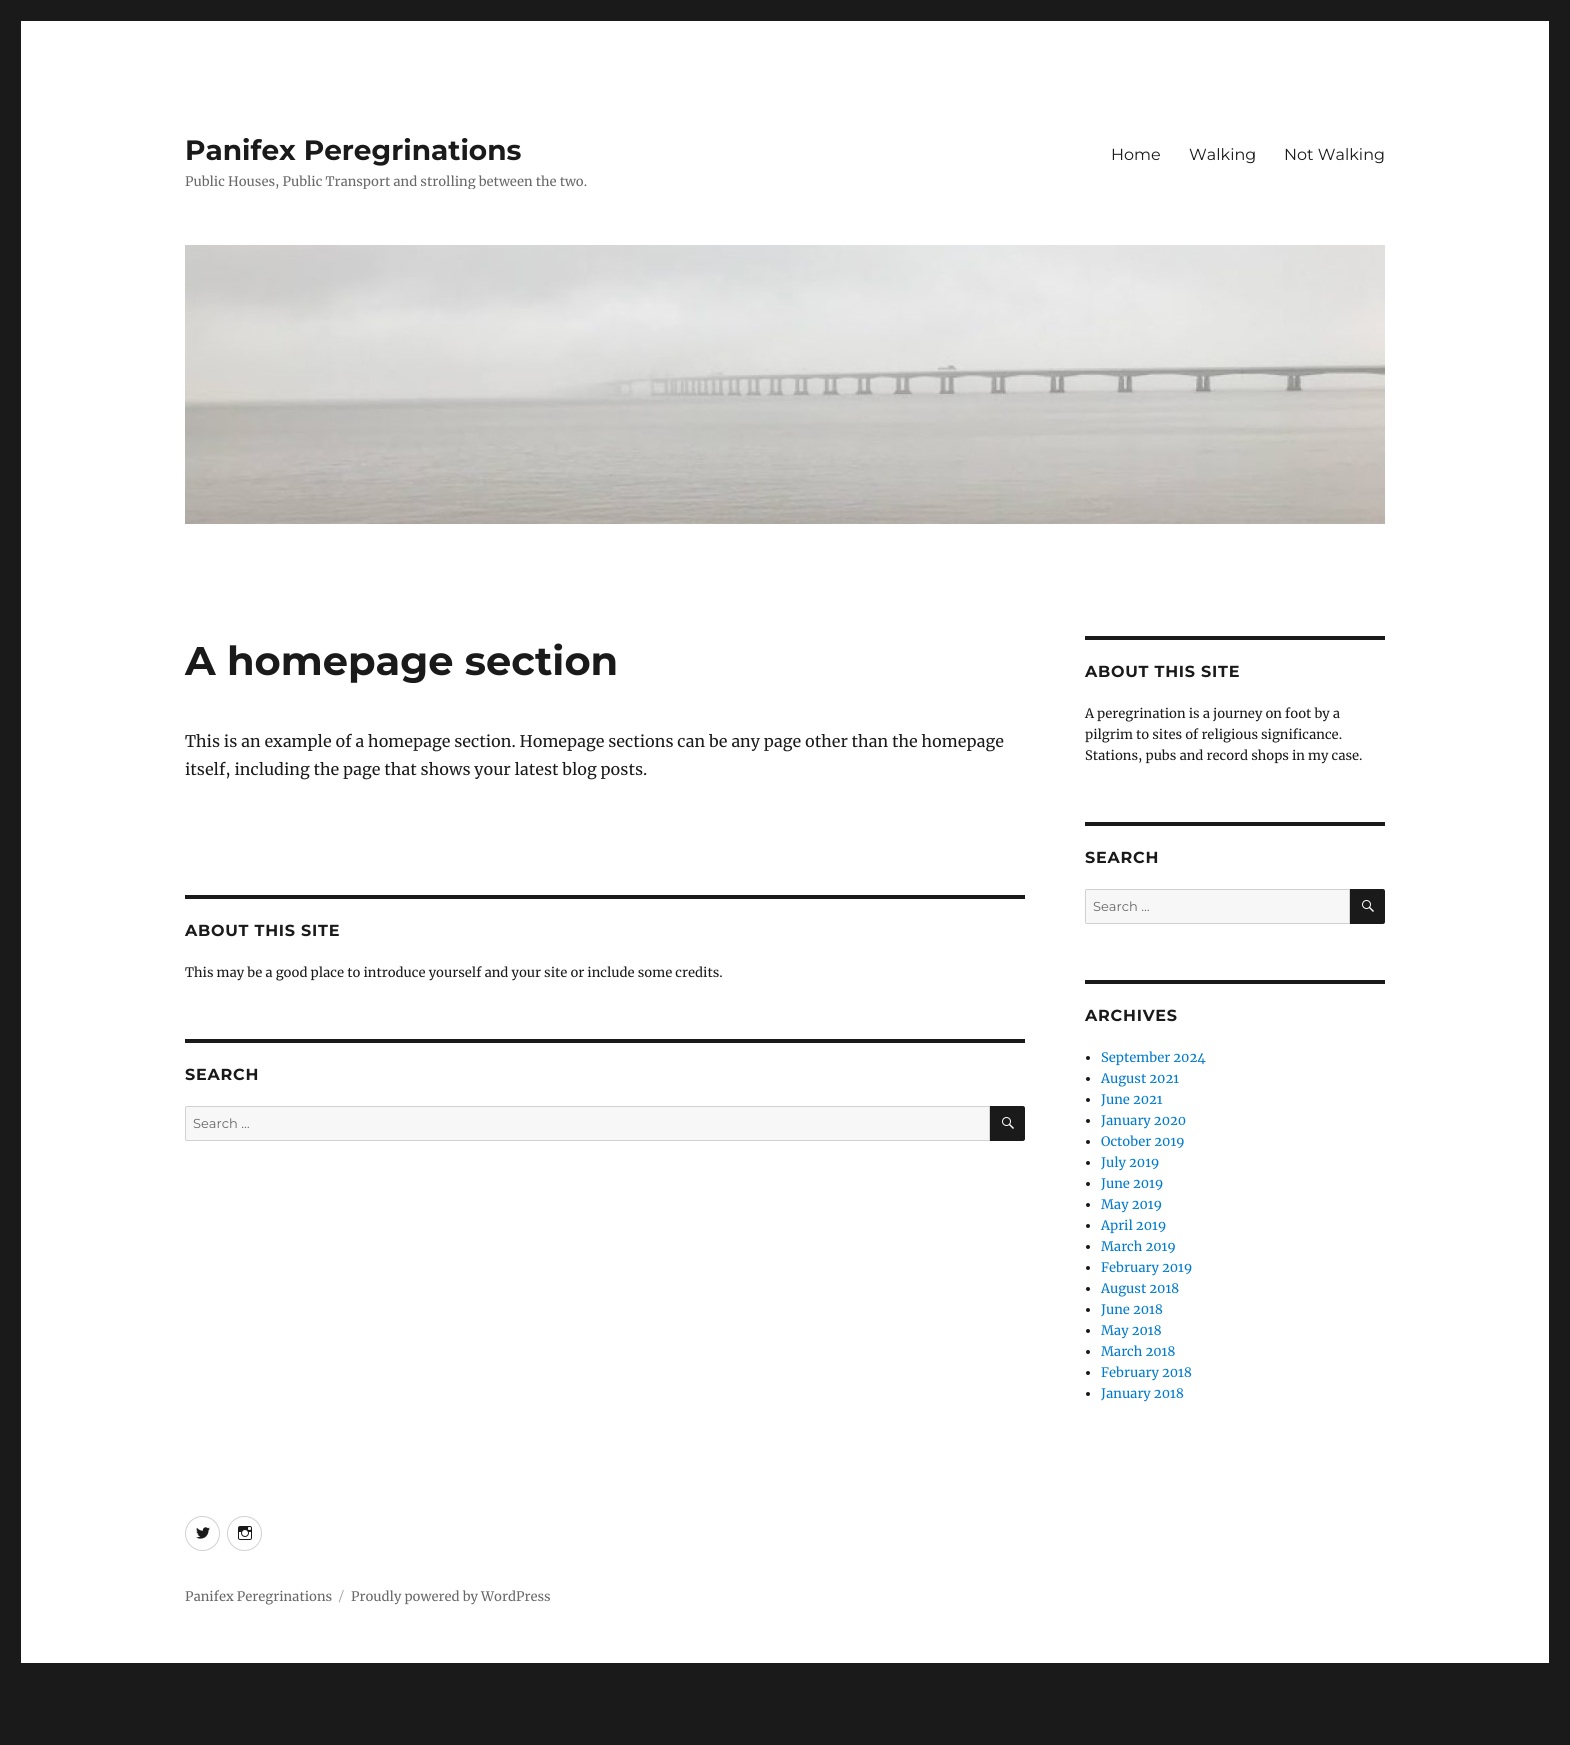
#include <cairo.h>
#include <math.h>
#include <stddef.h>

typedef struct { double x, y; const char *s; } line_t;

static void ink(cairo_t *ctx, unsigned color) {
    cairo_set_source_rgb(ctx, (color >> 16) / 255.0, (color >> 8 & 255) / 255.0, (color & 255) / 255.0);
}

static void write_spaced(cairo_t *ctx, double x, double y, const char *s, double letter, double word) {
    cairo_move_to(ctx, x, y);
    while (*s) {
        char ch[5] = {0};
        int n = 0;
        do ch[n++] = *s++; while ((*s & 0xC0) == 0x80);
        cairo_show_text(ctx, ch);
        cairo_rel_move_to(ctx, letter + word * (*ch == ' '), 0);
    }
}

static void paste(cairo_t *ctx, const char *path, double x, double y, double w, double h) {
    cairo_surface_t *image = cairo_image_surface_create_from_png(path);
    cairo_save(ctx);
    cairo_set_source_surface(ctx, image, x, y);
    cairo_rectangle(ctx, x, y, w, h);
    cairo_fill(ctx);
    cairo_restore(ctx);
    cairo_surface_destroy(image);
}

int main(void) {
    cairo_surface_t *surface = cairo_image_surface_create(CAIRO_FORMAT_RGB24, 1570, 1745);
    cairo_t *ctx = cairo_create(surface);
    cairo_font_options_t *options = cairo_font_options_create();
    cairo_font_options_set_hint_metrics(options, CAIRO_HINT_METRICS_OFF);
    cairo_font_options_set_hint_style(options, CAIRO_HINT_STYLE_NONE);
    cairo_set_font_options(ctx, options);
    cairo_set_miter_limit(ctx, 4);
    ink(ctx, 0x1A1A1A);
    cairo_paint(ctx);
    ink(ctx, 0xFFFFFF);
    cairo_rectangle(ctx, 21, 21, 1528, 1642);
    cairo_fill(ctx);
    cairo_select_font_face(ctx, "Montserrat Thin", CAIRO_FONT_SLANT_NORMAL, CAIRO_FONT_WEIGHT_NORMAL);
    cairo_set_font_size(ctx, 28);
    ink(ctx, 0x1A1A1A);
    cairo_move_to(ctx, 185, 160);
    cairo_show_text(ctx, "Panifex Peregrinations");
    cairo_save(ctx);
    cairo_rectangle(ctx, 185, 133, 402, 56);
    cairo_clip(ctx);
    cairo_select_font_face(ctx, "Merriweather", CAIRO_FONT_SLANT_NORMAL, CAIRO_FONT_WEIGHT_NORMAL);
    cairo_set_font_size(ctx, 13);
    ink(ctx, 0x686868);
    cairo_move_to(ctx, 185, 186);
    cairo_show_text(ctx, "Public Houses, Public Transport and strolling between the two.");
    cairo_restore(ctx);
    cairo_select_font_face(ctx, "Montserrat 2 Thin", CAIRO_FONT_SLANT_NORMAL, CAIRO_FONT_WEIGHT_NORMAL);
    cairo_set_font_size(ctx, 16);
    {
        static const line_t items[] = {
            {1111, 160, "Home"},
            {1189, 160, "Walking"},
            {1284, 160, "Not Walking"},
        };
        for (size_t i = 0; i < sizeof items / sizeof *items; i++) {
            cairo_move_to(ctx, items[i].x, items[i].y);
            cairo_show_text(ctx, items[i].s);
        }
    }
    paste(ctx, "media/1.png", 185, 245, 1200, 279);
    cairo_select_font_face(ctx, "Montserrat Thin", CAIRO_FONT_SLANT_NORMAL, CAIRO_FONT_WEIGHT_NORMAL);
    cairo_set_font_size(ctx, 40);
    cairo_move_to(ctx, 185, 675);
    cairo_show_text(ctx, "A homepage section");
    cairo_select_font_face(ctx, "Merriweather", CAIRO_FONT_SLANT_NORMAL, CAIRO_FONT_WEIGHT_NORMAL);
    cairo_set_font_size(ctx, 16);
    cairo_move_to(ctx, 185, 747);
    cairo_show_text(ctx, "This is an example of a homepage section. Homepage sections can be any page other than the homepage");
    cairo_move_to(ctx, 185, 775);
    cairo_show_text(ctx, "itself, including the page that shows your latest blog posts.");
    cairo_rectangle(ctx, 185, 895, 840, 4);
    cairo_fill(ctx);
    cairo_select_font_face(ctx, "Montserrat Thin", CAIRO_FONT_SLANT_NORMAL, CAIRO_FONT_WEIGHT_NORMAL);
    write_spaced(ctx, 185, 936, "ABOUT THIS SITE", 0.75, 0);
    cairo_select_font_face(ctx, "Merriweather", CAIRO_FONT_SLANT_NORMAL, CAIRO_FONT_WEIGHT_NORMAL);
    cairo_set_font_size(ctx, 13);
    cairo_move_to(ctx, 185, 977);
    cairo_show_text(ctx, "This may be a good place to introduce yourself and your site or include some credits.");
    cairo_rectangle(ctx, 185, 1039, 840, 4);
    cairo_fill(ctx);
    cairo_select_font_face(ctx, "Montserrat Thin", CAIRO_FONT_SLANT_NORMAL, CAIRO_FONT_WEIGHT_NORMAL);
    cairo_set_font_size(ctx, 16);
    write_spaced(ctx, 185, 1080, "SEARCH", 0.75, 0);
    ink(ctx, 0xF7F7F7);
    cairo_new_path(ctx);
    cairo_move_to(ctx, 187, 1106.5);
    cairo_line_to(ctx, 989.5, 1106.5);
    cairo_line_to(ctx, 989.5, 1140.5);
    cairo_line_to(ctx, 187, 1140.5);
    cairo_curve_to(ctx, 186, 1140.5, 185.5, 1140, 185.5, 1139);
    cairo_line_to(ctx, 185.5, 1108);
    cairo_curve_to(ctx, 185.5, 1107, 186, 1106.5, 187, 1106.5);
    cairo_close_path(ctx);
    cairo_fill_preserve(ctx);
    ink(ctx, 0xD1D1D1);
    cairo_set_line_width(ctx, 1);
    cairo_stroke(ctx);
    cairo_select_font_face(ctx, "Montserrat 2 Thin", CAIRO_FONT_SLANT_NORMAL, CAIRO_FONT_WEIGHT_NORMAL);
    cairo_set_font_size(ctx, 13);
    ink(ctx, 0x686868);
    cairo_move_to(ctx, 193, 1128);
    cairo_show_text(ctx, "Search …");
    ink(ctx, 0x1A1A1A);
    cairo_new_path(ctx);
    cairo_move_to(ctx, 990, 1106);
    cairo_line_to(ctx, 1023, 1106);
    cairo_curve_to(ctx, 1024, 1106, 1025, 1107, 1025, 1108);
    cairo_line_to(ctx, 1025, 1139);
    cairo_curve_to(ctx, 1025, 1140, 1024, 1141, 1023, 1141);
    cairo_line_to(ctx, 990, 1141);
    cairo_close_path(ctx);
    cairo_fill(ctx);
    paste(ctx, "media/2.png", 1002, 1117, 12, 12);
    cairo_rectangle(ctx, 1085, 636, 300, 4);
    cairo_fill(ctx);
    cairo_select_font_face(ctx, "Montserrat Thin", CAIRO_FONT_SLANT_NORMAL, CAIRO_FONT_WEIGHT_NORMAL);
    cairo_set_font_size(ctx, 16);
    write_spaced(ctx, 1085, 677, "ABOUT THIS SITE", 0.75, 0);
    cairo_select_font_face(ctx, "Merriweather", CAIRO_FONT_SLANT_NORMAL, CAIRO_FONT_WEIGHT_NORMAL);
    cairo_set_font_size(ctx, 13);
    {
        static const line_t items[] = {
            {1085, 718, "A peregrination is a journey on foot by a"},
            {1085, 739, "pilgrim to sites of religious significance."},
            {1085, 760, "Stations, pubs and record shops in my case."},
        };
        for (size_t i = 0; i < sizeof items / sizeof *items; i++) {
            cairo_move_to(ctx, items[i].x, items[i].y);
            cairo_show_text(ctx, items[i].s);
        }
    }
    cairo_rectangle(ctx, 1085, 822, 300, 4);
    cairo_fill(ctx);
    cairo_select_font_face(ctx, "Montserrat Thin", CAIRO_FONT_SLANT_NORMAL, CAIRO_FONT_WEIGHT_NORMAL);
    cairo_set_font_size(ctx, 16);
    write_spaced(ctx, 1085, 863, "SEARCH", 0.75, 0);
    ink(ctx, 0xF7F7F7);
    cairo_new_path(ctx);
    cairo_move_to(ctx, 1087, 889.5);
    cairo_line_to(ctx, 1349.5, 889.5);
    cairo_line_to(ctx, 1349.5, 923.5);
    cairo_line_to(ctx, 1087, 923.5);
    cairo_curve_to(ctx, 1086, 923.5, 1085.5, 923, 1085.5, 922);
    cairo_line_to(ctx, 1085.5, 891);
    cairo_curve_to(ctx, 1085.5, 890, 1086, 889.5, 1087, 889.5);
    cairo_close_path(ctx);
    cairo_fill_preserve(ctx);
    ink(ctx, 0xD1D1D1);
    cairo_stroke(ctx);
    cairo_select_font_face(ctx, "Montserrat 2 Thin", CAIRO_FONT_SLANT_NORMAL, CAIRO_FONT_WEIGHT_NORMAL);
    cairo_set_font_size(ctx, 13);
    ink(ctx, 0x686868);
    cairo_move_to(ctx, 1093, 911);
    cairo_show_text(ctx, "Search …");
    ink(ctx, 0x1A1A1A);
    cairo_new_path(ctx);
    cairo_move_to(ctx, 1350, 889);
    cairo_line_to(ctx, 1383, 889);
    cairo_curve_to(ctx, 1384, 889, 1385, 890, 1385, 891);
    cairo_line_to(ctx, 1385, 922);
    cairo_curve_to(ctx, 1385, 923, 1384, 924, 1383, 924);
    cairo_line_to(ctx, 1350, 924);
    cairo_close_path(ctx);
    cairo_fill(ctx);
    paste(ctx, "media/2.png", 1362, 900, 12, 12);
    cairo_rectangle(ctx, 1085, 980, 300, 4);
    cairo_fill(ctx);
    cairo_select_font_face(ctx, "Montserrat Thin", CAIRO_FONT_SLANT_NORMAL, CAIRO_FONT_WEIGHT_NORMAL);
    cairo_set_font_size(ctx, 16);
    write_spaced(ctx, 1085, 1021, "ARCHIVES", 0.75, 0);
    cairo_new_path(ctx);
    cairo_arc(ctx, 1088, 1058, 2, 0, 2 * M_PI);
    cairo_fill(ctx);
    cairo_select_font_face(ctx, "Merriweather", CAIRO_FONT_SLANT_NORMAL, CAIRO_FONT_WEIGHT_NORMAL);
    cairo_set_font_size(ctx, 13);
    ink(ctx, 0x007ACC);
    cairo_move_to(ctx, 1101, 1062);
    cairo_show_text(ctx, "September 2024");
    ink(ctx, 0x1A1A1A);
    cairo_new_path(ctx);
    cairo_arc(ctx, 1088, 1079, 2, 0, 2 * M_PI);
    cairo_fill(ctx);
    ink(ctx, 0x007ACC);
    cairo_move_to(ctx, 1101, 1083);
    cairo_show_text(ctx, "August 2021");
    ink(ctx, 0x1A1A1A);
    cairo_new_path(ctx);
    cairo_arc(ctx, 1088, 1100, 2, 0, 2 * M_PI);
    cairo_fill(ctx);
    ink(ctx, 0x007ACC);
    cairo_move_to(ctx, 1101, 1104);
    cairo_show_text(ctx, "June 2021");
    ink(ctx, 0x1A1A1A);
    cairo_new_path(ctx);
    cairo_arc(ctx, 1088, 1121, 2, 0, 2 * M_PI);
    cairo_fill(ctx);
    ink(ctx, 0x007ACC);
    cairo_move_to(ctx, 1101, 1125);
    cairo_show_text(ctx, "January 2020");
    ink(ctx, 0x1A1A1A);
    cairo_new_path(ctx);
    cairo_arc(ctx, 1088, 1142, 2, 0, 2 * M_PI);
    cairo_fill(ctx);
    ink(ctx, 0x007ACC);
    cairo_move_to(ctx, 1101, 1146);
    cairo_show_text(ctx, "October 2019");
    ink(ctx, 0x1A1A1A);
    cairo_new_path(ctx);
    cairo_arc(ctx, 1088, 1163, 2, 0, 2 * M_PI);
    cairo_fill(ctx);
    ink(ctx, 0x007ACC);
    cairo_move_to(ctx, 1101, 1167);
    cairo_show_text(ctx, "July 2019");
    ink(ctx, 0x1A1A1A);
    cairo_new_path(ctx);
    cairo_arc(ctx, 1088, 1184, 2, 0, 2 * M_PI);
    cairo_fill(ctx);
    ink(ctx, 0x007ACC);
    cairo_move_to(ctx, 1101, 1188);
    cairo_show_text(ctx, "June 2019");
    ink(ctx, 0x1A1A1A);
    cairo_new_path(ctx);
    cairo_arc(ctx, 1088, 1205, 2, 0, 2 * M_PI);
    cairo_fill(ctx);
    ink(ctx, 0x007ACC);
    cairo_move_to(ctx, 1101, 1209);
    cairo_show_text(ctx, "May 2019");
    ink(ctx, 0x1A1A1A);
    cairo_new_path(ctx);
    cairo_arc(ctx, 1088, 1226, 2, 0, 2 * M_PI);
    cairo_fill(ctx);
    ink(ctx, 0x007ACC);
    cairo_move_to(ctx, 1101, 1230);
    cairo_show_text(ctx, "April 2019");
    ink(ctx, 0x1A1A1A);
    cairo_new_path(ctx);
    cairo_arc(ctx, 1088, 1247, 2, 0, 2 * M_PI);
    cairo_fill(ctx);
    ink(ctx, 0x007ACC);
    cairo_move_to(ctx, 1101, 1251);
    cairo_show_text(ctx, "March 2019");
    ink(ctx, 0x1A1A1A);
    cairo_new_path(ctx);
    cairo_arc(ctx, 1088, 1268, 2, 0, 2 * M_PI);
    cairo_fill(ctx);
    ink(ctx, 0x007ACC);
    cairo_move_to(ctx, 1101, 1272);
    cairo_show_text(ctx, "February 2019");
    ink(ctx, 0x1A1A1A);
    cairo_new_path(ctx);
    cairo_arc(ctx, 1088, 1289, 2, 0, 2 * M_PI);
    cairo_fill(ctx);
    ink(ctx, 0x007ACC);
    cairo_move_to(ctx, 1101, 1293);
    cairo_show_text(ctx, "August 2018");
    ink(ctx, 0x1A1A1A);
    cairo_new_path(ctx);
    cairo_arc(ctx, 1088, 1310, 2, 0, 2 * M_PI);
    cairo_fill(ctx);
    ink(ctx, 0x007ACC);
    cairo_move_to(ctx, 1101, 1314);
    cairo_show_text(ctx, "June 2018");
    ink(ctx, 0x1A1A1A);
    cairo_new_path(ctx);
    cairo_arc(ctx, 1088, 1331, 2, 0, 2 * M_PI);
    cairo_fill(ctx);
    ink(ctx, 0x007ACC);
    cairo_move_to(ctx, 1101, 1335);
    cairo_show_text(ctx, "May 2018");
    ink(ctx, 0x1A1A1A);
    cairo_new_path(ctx);
    cairo_arc(ctx, 1088, 1352, 2, 0, 2 * M_PI);
    cairo_fill(ctx);
    ink(ctx, 0x007ACC);
    cairo_move_to(ctx, 1101, 1356);
    cairo_show_text(ctx, "March 2018");
    ink(ctx, 0x1A1A1A);
    cairo_new_path(ctx);
    cairo_arc(ctx, 1088, 1373, 2, 0, 2 * M_PI);
    cairo_fill(ctx);
    ink(ctx, 0x007ACC);
    cairo_move_to(ctx, 1101, 1377);
    cairo_show_text(ctx, "February 2018");
    ink(ctx, 0x1A1A1A);
    cairo_new_path(ctx);
    cairo_arc(ctx, 1088, 1394, 2, 0, 2 * M_PI);
    cairo_fill(ctx);
    ink(ctx, 0x007ACC);
    cairo_move_to(ctx, 1101, 1398);
    cairo_show_text(ctx, "January 2018");
    cairo_new_path(ctx);
    cairo_arc(ctx, 202.5, 1533.5, 17, 0, 2 * M_PI);
    ink(ctx, 0xD1D1D1);
    cairo_stroke(ctx);
    paste(ctx, "media/3.png", 196, 1527, 14, 12);
    cairo_arc(ctx, 244.5, 1533.5, 17, 0, 2 * M_PI);
    cairo_stroke(ctx);
    paste(ctx, "media/4.png", 238, 1526, 14, 14);
    ink(ctx, 0x686868);
    cairo_move_to(ctx, 185, 1601);
    cairo_show_text(ctx, "Panifex Peregrinations");
    cairo_select_font_face(ctx, "Montserrat 2 Thin", CAIRO_FONT_SLANT_NORMAL, CAIRO_FONT_WEIGHT_NORMAL);
    ink(ctx, 0x959595);
    cairo_move_to(ctx, 339, 1601);
    cairo_show_text(ctx, "/");
    cairo_select_font_face(ctx, "Merriweather", CAIRO_FONT_SLANT_NORMAL, CAIRO_FONT_WEIGHT_NORMAL);
    ink(ctx, 0x686868);
    cairo_move_to(ctx, 351, 1601);
    cairo_show_text(ctx, "Proudly powered by WordPress");
    cairo_surface_write_to_png(surface, "image.png");
    cairo_font_options_destroy(options);
    cairo_destroy(ctx);
    cairo_surface_destroy(surface);
    return 0;
}
